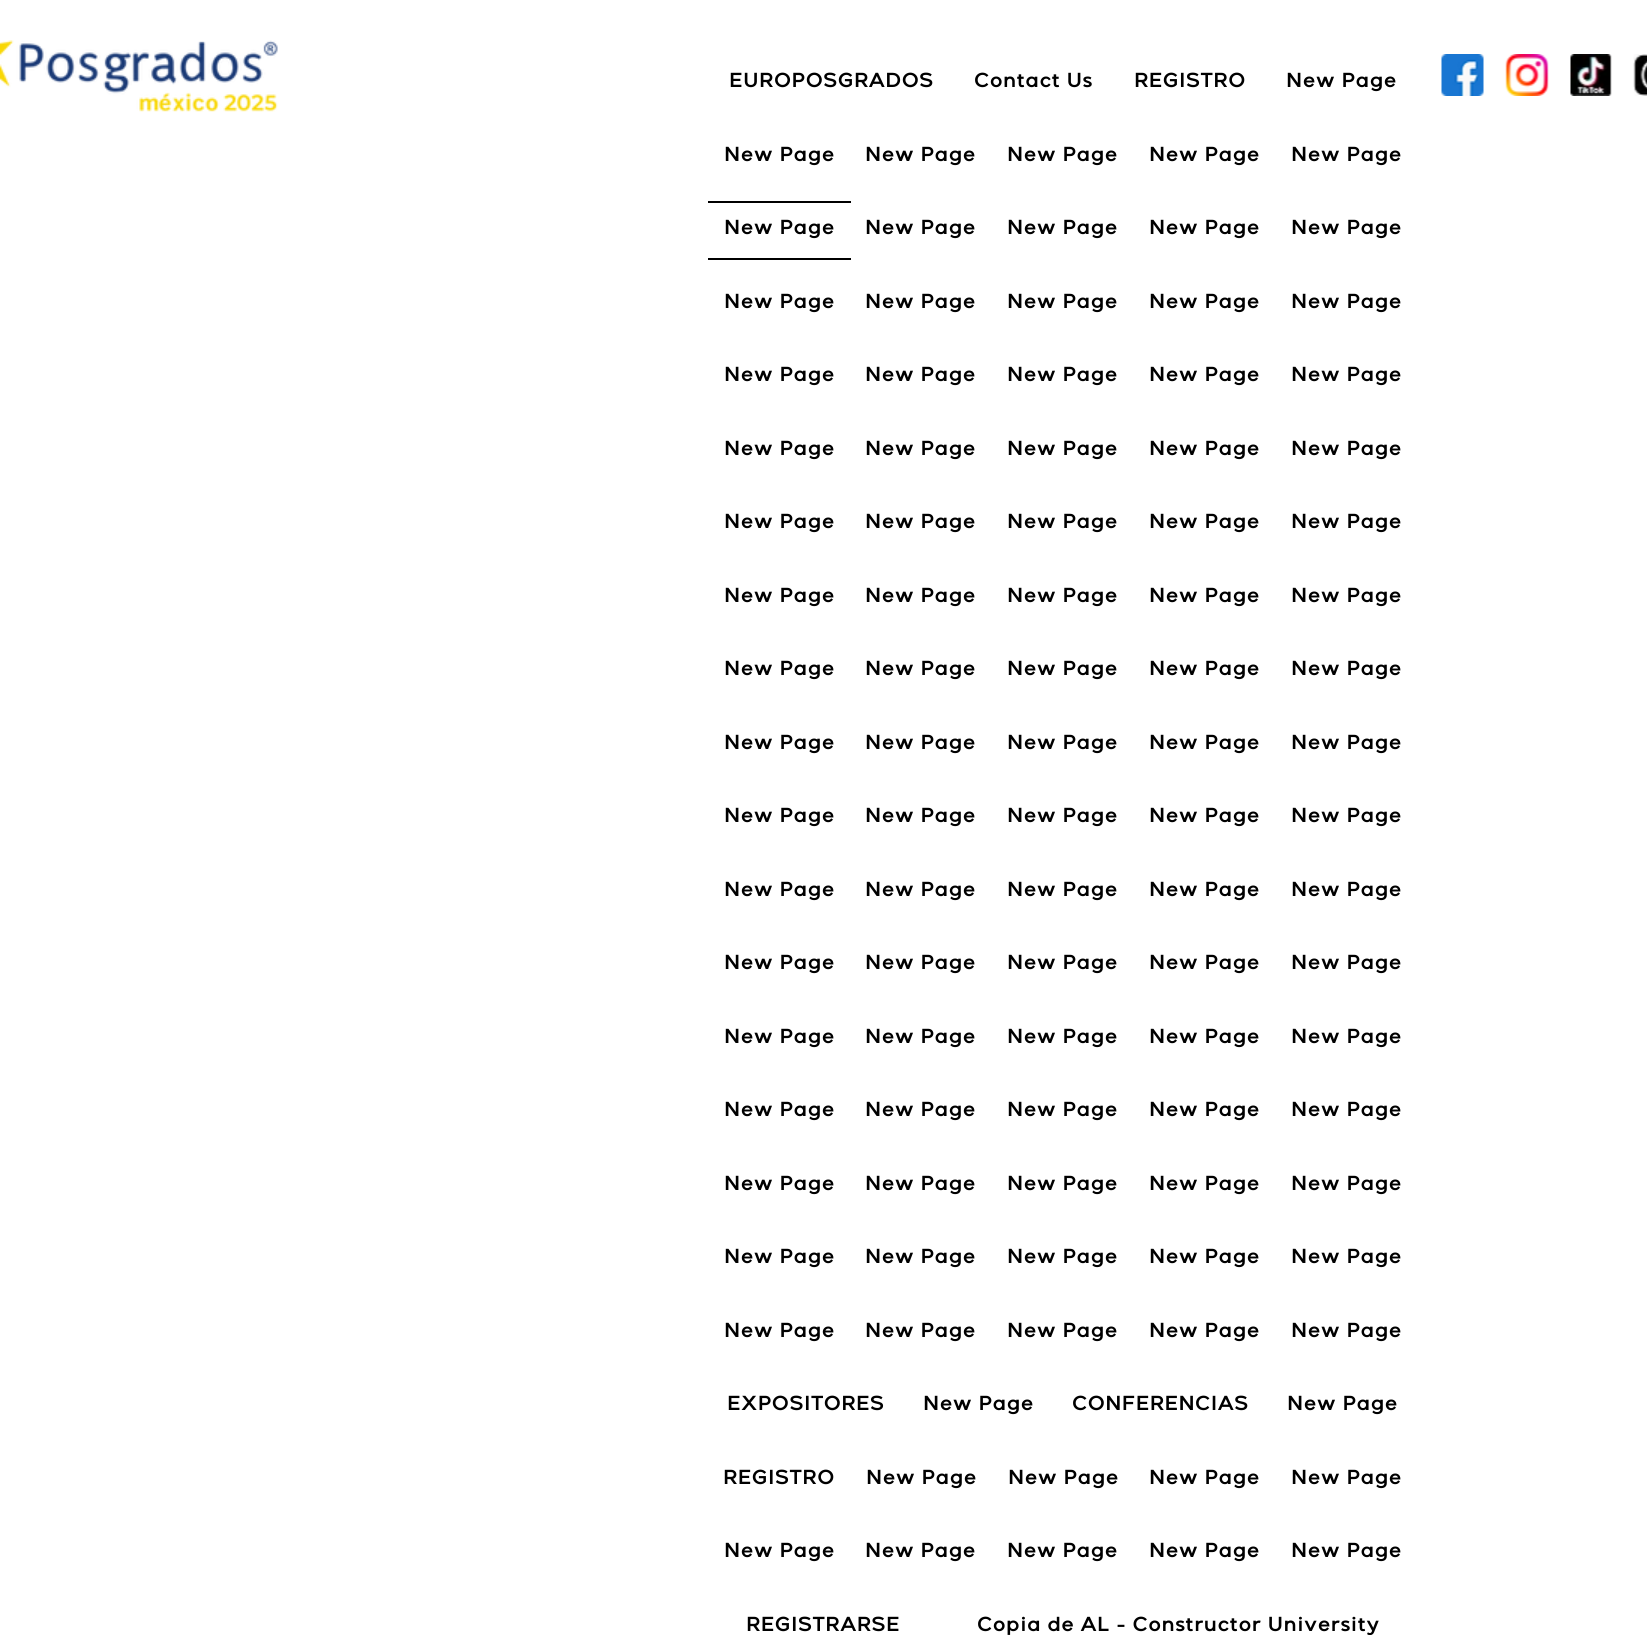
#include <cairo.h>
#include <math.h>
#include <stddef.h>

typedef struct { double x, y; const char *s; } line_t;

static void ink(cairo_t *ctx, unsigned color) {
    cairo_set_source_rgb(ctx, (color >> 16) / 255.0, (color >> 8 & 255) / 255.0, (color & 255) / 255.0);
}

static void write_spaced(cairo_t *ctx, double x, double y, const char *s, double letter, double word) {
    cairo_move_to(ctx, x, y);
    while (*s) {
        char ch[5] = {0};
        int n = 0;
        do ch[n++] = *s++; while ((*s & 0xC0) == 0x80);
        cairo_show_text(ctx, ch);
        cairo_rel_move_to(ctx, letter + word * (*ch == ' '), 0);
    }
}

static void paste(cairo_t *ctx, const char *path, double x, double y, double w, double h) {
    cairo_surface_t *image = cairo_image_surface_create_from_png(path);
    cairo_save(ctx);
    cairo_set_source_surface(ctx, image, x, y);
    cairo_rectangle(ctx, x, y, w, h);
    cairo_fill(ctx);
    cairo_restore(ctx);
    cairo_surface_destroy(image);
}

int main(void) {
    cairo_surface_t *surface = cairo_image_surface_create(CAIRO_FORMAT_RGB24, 1647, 1635);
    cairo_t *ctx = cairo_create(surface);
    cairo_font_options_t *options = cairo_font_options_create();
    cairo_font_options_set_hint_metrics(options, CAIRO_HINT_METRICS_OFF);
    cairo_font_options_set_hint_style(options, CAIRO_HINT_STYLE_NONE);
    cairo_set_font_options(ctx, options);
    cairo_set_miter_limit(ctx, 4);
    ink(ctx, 0xFFFFFF);
    cairo_paint(ctx);
    paste(ctx, "media/1.png", 0, 40, 278, 72);
    cairo_select_font_face(ctx, "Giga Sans", CAIRO_FONT_SLANT_NORMAL, CAIRO_FONT_WEIGHT_BOLD);
    cairo_set_font_size(ctx, 19.5);
    ink(ctx, 0x000000);
    {
        static const line_t items[] = {
            {729, 87, "EUROPOSGRADOS"},
            {974, 87, "Contact Us"},
            {1134, 87, "REGISTRO"},
            {1286, 87, "New Page"},
            {724, 161, "New Page"},
            {865, 161, "New Page"},
            {1007, 161, "New Page"},
            {1149, 161, "New Page"},
            {1291, 161, "New Page"},
        };
        for (size_t i = 0; i < sizeof items / sizeof *items; i++) {
            write_spaced(ctx, items[i].x, items[i].y, items[i].s, 1, 0);
        }
    }
    cairo_rectangle(ctx, 708, 201, 143, 2);
    cairo_fill(ctx);
    cairo_rectangle(ctx, 708, 258, 143, 2);
    cairo_fill(ctx);
    {
        static const line_t items[] = {
            {724, 234, "New Page"},
            {865, 234, "New Page"},
            {1007, 234, "New Page"},
            {1149, 234, "New Page"},
            {1291, 234, "New Page"},
            {724, 308, "New Page"},
            {865, 308, "New Page"},
            {1007, 308, "New Page"},
            {1149, 308, "New Page"},
            {1291, 308, "New Page"},
            {724, 381, "New Page"},
            {865, 381, "New Page"},
            {1007, 381, "New Page"},
            {1149, 381, "New Page"},
            {1291, 381, "New Page"},
            {724, 455, "New Page"},
            {865, 455, "New Page"},
            {1007, 455, "New Page"},
            {1149, 455, "New Page"},
            {1291, 455, "New Page"},
            {724, 528, "New Page"},
            {865, 528, "New Page"},
            {1007, 528, "New Page"},
            {1149, 528, "New Page"},
            {1291, 528, "New Page"},
            {724, 602, "New Page"},
            {865, 602, "New Page"},
            {1007, 602, "New Page"},
            {1149, 602, "New Page"},
            {1291, 602, "New Page"},
            {724, 675, "New Page"},
            {865, 675, "New Page"},
            {1007, 675, "New Page"},
            {1149, 675, "New Page"},
            {1291, 675, "New Page"},
            {724, 749, "New Page"},
            {865, 749, "New Page"},
            {1007, 749, "New Page"},
            {1149, 749, "New Page"},
            {1291, 749, "New Page"},
            {724, 822, "New Page"},
            {865, 822, "New Page"},
            {1007, 822, "New Page"},
            {1149, 822, "New Page"},
            {1291, 822, "New Page"},
            {724, 896, "New Page"},
            {865, 896, "New Page"},
            {1007, 896, "New Page"},
            {1149, 896, "New Page"},
            {1291, 896, "New Page"},
            {724, 969, "New Page"},
            {865, 969, "New Page"},
            {1007, 969, "New Page"},
            {1149, 969, "New Page"},
            {1291, 969, "New Page"},
            {724, 1043, "New Page"},
            {865, 1043, "New Page"},
            {1007, 1043, "New Page"},
            {1149, 1043, "New Page"},
            {1291, 1043, "New Page"},
            {724, 1116, "New Page"},
            {865, 1116, "New Page"},
            {1007, 1116, "New Page"},
            {1149, 1116, "New Page"},
            {1291, 1116, "New Page"},
            {724, 1190, "New Page"},
            {865, 1190, "New Page"},
            {1007, 1190, "New Page"},
            {1149, 1190, "New Page"},
            {1291, 1190, "New Page"},
            {724, 1263, "New Page"},
            {865, 1263, "New Page"},
            {1007, 1263, "New Page"},
            {1149, 1263, "New Page"},
            {1291, 1263, "New Page"},
            {724, 1337, "New Page"},
            {865, 1337, "New Page"},
            {1007, 1337, "New Page"},
            {1149, 1337, "New Page"},
            {1291, 1337, "New Page"},
            {727, 1410, "EXPOSITORES"},
            {923, 1410, "New Page"},
            {1072, 1410, "CONFERENCIAS"},
            {1287, 1410, "New Page"},
            {723, 1484, "REGISTRO"},
            {866, 1484, "New Page"},
            {1008, 1484, "New Page"},
            {1149, 1484, "New Page"},
            {1291, 1484, "New Page"},
            {724, 1557, "New Page"},
            {865, 1557, "New Page"},
            {1007, 1557, "New Page"},
            {1149, 1557, "New Page"},
            {1291, 1557, "New Page"},
            {746, 1631, "REGISTRARSE"},
            {977, 1631, "Copia de AL - Constructor University"},
        };
        for (size_t i = 0; i < sizeof items / sizeof *items; i++) {
            write_spaced(ctx, items[i].x, items[i].y, items[i].s, 1, 0);
        }
    }
    paste(ctx, "media/2.png", 1441, 54, 43, 42);
    paste(ctx, "media/3.png", 1505, 54, 44, 42);
    paste(ctx, "media/4.png", 1570, 54, 42, 42);
    paste(ctx, "media/5.png", 1633, 54, 14, 42);
    cairo_surface_write_to_png(surface, "image.png");
    cairo_font_options_destroy(options);
    cairo_destroy(ctx);
    cairo_surface_destroy(surface);
    return 0;
}
